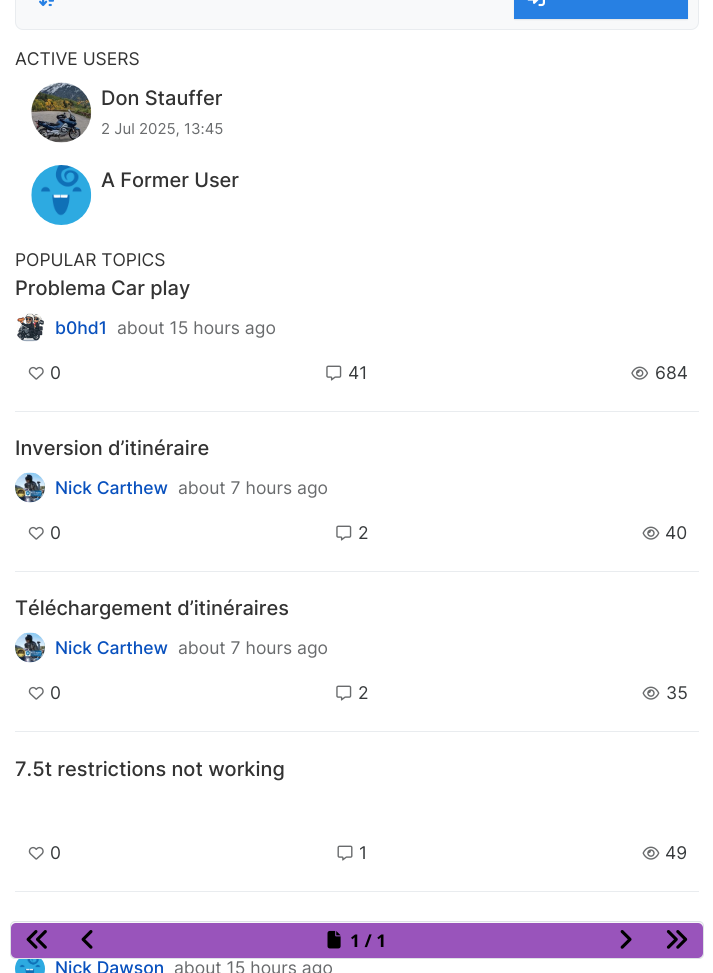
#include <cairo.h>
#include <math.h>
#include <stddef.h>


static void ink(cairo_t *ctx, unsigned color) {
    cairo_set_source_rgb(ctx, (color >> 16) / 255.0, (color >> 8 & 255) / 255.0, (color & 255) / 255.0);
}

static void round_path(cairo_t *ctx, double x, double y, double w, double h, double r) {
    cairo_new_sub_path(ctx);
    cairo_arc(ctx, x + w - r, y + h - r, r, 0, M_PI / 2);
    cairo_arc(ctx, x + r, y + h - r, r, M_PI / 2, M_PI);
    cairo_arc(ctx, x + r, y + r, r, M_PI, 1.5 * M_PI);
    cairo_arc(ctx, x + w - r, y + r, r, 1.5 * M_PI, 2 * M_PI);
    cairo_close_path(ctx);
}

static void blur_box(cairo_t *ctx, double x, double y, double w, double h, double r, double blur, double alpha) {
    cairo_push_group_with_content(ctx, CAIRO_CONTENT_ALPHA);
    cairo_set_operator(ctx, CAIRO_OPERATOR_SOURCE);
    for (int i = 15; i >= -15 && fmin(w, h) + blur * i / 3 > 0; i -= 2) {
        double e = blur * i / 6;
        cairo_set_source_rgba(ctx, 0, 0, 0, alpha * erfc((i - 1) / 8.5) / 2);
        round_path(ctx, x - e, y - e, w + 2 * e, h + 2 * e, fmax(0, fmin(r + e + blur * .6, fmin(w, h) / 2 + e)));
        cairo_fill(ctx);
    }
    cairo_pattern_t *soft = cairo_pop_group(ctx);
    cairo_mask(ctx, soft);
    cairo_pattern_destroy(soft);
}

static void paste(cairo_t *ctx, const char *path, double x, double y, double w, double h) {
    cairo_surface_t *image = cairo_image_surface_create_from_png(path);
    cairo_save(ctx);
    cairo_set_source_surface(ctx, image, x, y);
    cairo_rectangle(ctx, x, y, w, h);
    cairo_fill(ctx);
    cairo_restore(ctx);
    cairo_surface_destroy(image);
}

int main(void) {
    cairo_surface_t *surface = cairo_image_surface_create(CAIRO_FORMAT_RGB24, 713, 973);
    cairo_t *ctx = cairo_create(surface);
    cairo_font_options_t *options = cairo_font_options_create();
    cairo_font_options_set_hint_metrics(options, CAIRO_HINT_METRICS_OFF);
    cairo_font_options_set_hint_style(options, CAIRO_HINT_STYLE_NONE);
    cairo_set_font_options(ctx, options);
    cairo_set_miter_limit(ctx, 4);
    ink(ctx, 0xFFFFFF);
    cairo_paint(ctx);
    ink(ctx, 0xF8F9FA);
    round_path(ctx, 15.5, -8.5, 683, 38, 7.5);
    cairo_fill_preserve(ctx);
    ink(ctx, 0xE9ECEF);
    cairo_set_line_width(ctx, 1);
    cairo_stroke(ctx);
    paste(ctx, "media/1.png", 39, 0, 15, 7);
    ink(ctx, 0x000000);
    blur_box(ctx, 514, -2, 174, 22, 0, 0.5, 0.07);
    ink(ctx, 0x2780E3);
    cairo_rectangle(ctx, 514, 0, 174, 19);
    cairo_fill(ctx);
    paste(ctx, "media/2.png", 527, 0, 18, 7);
    cairo_select_font_face(ctx, "Inter", CAIRO_FONT_SLANT_NORMAL, CAIRO_FONT_WEIGHT_NORMAL);
    cairo_set_font_size(ctx, 17.5);
    ink(ctx, 0x333333);
    cairo_move_to(ctx, 15, 65);
    cairo_show_text(ctx, "ACTIVE USERS");
    paste(ctx, "media/3.png", 31, 82, 61, 61);
    cairo_select_font_face(ctx, "Inter Medium", CAIRO_FONT_SLANT_NORMAL, CAIRO_FONT_WEIGHT_NORMAL);
    cairo_set_font_size(ctx, 20);
    cairo_move_to(ctx, 101, 105);
    cairo_show_text(ctx, "Don Stauffer");
    cairo_select_font_face(ctx, "Inter", CAIRO_FONT_SLANT_NORMAL, CAIRO_FONT_WEIGHT_NORMAL);
    cairo_set_font_size(ctx, 15);
    ink(ctx, 0x696B6D);
    cairo_move_to(ctx, 101, 134);
    cairo_show_text(ctx, "2 Jul 2025, 13:45");
    paste(ctx, "media/4.png", 31, 165, 61, 60);
    cairo_select_font_face(ctx, "Inter Medium", CAIRO_FONT_SLANT_NORMAL, CAIRO_FONT_WEIGHT_NORMAL);
    cairo_set_font_size(ctx, 20);
    ink(ctx, 0x333333);
    cairo_move_to(ctx, 101, 187);
    cairo_show_text(ctx, "A Former User");
    cairo_select_font_face(ctx, "Inter", CAIRO_FONT_SLANT_NORMAL, CAIRO_FONT_WEIGHT_NORMAL);
    cairo_set_font_size(ctx, 17.5);
    cairo_move_to(ctx, 15, 266);
    cairo_show_text(ctx, "POPULAR TOPICS");
    cairo_select_font_face(ctx, "Inter Medium", CAIRO_FONT_SLANT_NORMAL, CAIRO_FONT_WEIGHT_NORMAL);
    cairo_set_font_size(ctx, 20);
    cairo_move_to(ctx, 15, 295);
    cairo_show_text(ctx, "Problema Car play");
    paste(ctx, "media/5.png", 17, 313, 27, 29);
    cairo_set_font_size(ctx, 17.5);
    ink(ctx, 0x0951BE);
    cairo_move_to(ctx, 55, 334);
    cairo_show_text(ctx, "b0hd1");
    cairo_select_font_face(ctx, "Inter", CAIRO_FONT_SLANT_NORMAL, CAIRO_FONT_WEIGHT_NORMAL);
    ink(ctx, 0x696B6D);
    cairo_move_to(ctx, 117, 334);
    cairo_show_text(ctx, "about 15 hours ago");
    paste(ctx, "media/6.png", 28, 366, 16, 14);
    ink(ctx, 0x373A3C);
    cairo_move_to(ctx, 50, 379);
    cairo_show_text(ctx, "0");
    paste(ctx, "media/7.png", 326, 365, 16, 16);
    cairo_move_to(ctx, 348, 379);
    cairo_show_text(ctx, "41");
    paste(ctx, "media/8.png", 631, 366, 18, 14);
    cairo_move_to(ctx, 655, 379);
    cairo_show_text(ctx, "684");
    ink(ctx, 0xE9ECEF);
    cairo_rectangle(ctx, 15, 411, 684, 1);
    cairo_fill(ctx);
    cairo_select_font_face(ctx, "Inter Medium", CAIRO_FONT_SLANT_NORMAL, CAIRO_FONT_WEIGHT_NORMAL);
    cairo_set_font_size(ctx, 20);
    ink(ctx, 0x333333);
    cairo_move_to(ctx, 15, 455);
    cairo_show_text(ctx, "Inversion d’itinéraire");
    paste(ctx, "media/9.png", 15, 472, 30, 31);
    cairo_set_font_size(ctx, 17.5);
    ink(ctx, 0x0951BE);
    cairo_move_to(ctx, 55, 494);
    cairo_show_text(ctx, "Nick Carthew");
    cairo_select_font_face(ctx, "Inter", CAIRO_FONT_SLANT_NORMAL, CAIRO_FONT_WEIGHT_NORMAL);
    ink(ctx, 0x696B6D);
    cairo_move_to(ctx, 178, 494);
    cairo_show_text(ctx, "about 7 hours ago");
    paste(ctx, "media/6.png", 28, 526, 16, 14);
    ink(ctx, 0x373A3C);
    cairo_move_to(ctx, 50, 539);
    cairo_show_text(ctx, "0");
    paste(ctx, "media/7.png", 336, 525, 16, 16);
    cairo_move_to(ctx, 358, 539);
    cairo_show_text(ctx, "2");
    paste(ctx, "media/10.png", 642, 526, 18, 14);
    cairo_move_to(ctx, 665, 539);
    cairo_show_text(ctx, "40");
    ink(ctx, 0xE9ECEF);
    cairo_rectangle(ctx, 15, 571, 684, 1);
    cairo_fill(ctx);
    cairo_select_font_face(ctx, "Inter Medium", CAIRO_FONT_SLANT_NORMAL, CAIRO_FONT_WEIGHT_NORMAL);
    cairo_set_font_size(ctx, 20);
    ink(ctx, 0x333333);
    cairo_move_to(ctx, 15, 615);
    cairo_show_text(ctx, "Téléchargement d’itinéraires");
    paste(ctx, "media/9.png", 15, 632, 30, 31);
    cairo_set_font_size(ctx, 17.5);
    ink(ctx, 0x0951BE);
    cairo_move_to(ctx, 55, 654);
    cairo_show_text(ctx, "Nick Carthew");
    cairo_select_font_face(ctx, "Inter", CAIRO_FONT_SLANT_NORMAL, CAIRO_FONT_WEIGHT_NORMAL);
    ink(ctx, 0x696B6D);
    cairo_move_to(ctx, 178, 654);
    cairo_show_text(ctx, "about 7 hours ago");
    paste(ctx, "media/6.png", 28, 686, 16, 14);
    ink(ctx, 0x373A3C);
    cairo_move_to(ctx, 50, 699);
    cairo_show_text(ctx, "0");
    paste(ctx, "media/7.png", 336, 685, 16, 16);
    cairo_move_to(ctx, 358, 699);
    cairo_show_text(ctx, "2");
    paste(ctx, "media/10.png", 642, 686, 18, 14);
    cairo_move_to(ctx, 666, 699);
    cairo_show_text(ctx, "35");
    ink(ctx, 0xE9ECEF);
    cairo_rectangle(ctx, 15, 731, 684, 1);
    cairo_fill(ctx);
    cairo_select_font_face(ctx, "Inter Medium", CAIRO_FONT_SLANT_NORMAL, CAIRO_FONT_WEIGHT_NORMAL);
    cairo_set_font_size(ctx, 20);
    ink(ctx, 0x333333);
    cairo_move_to(ctx, 15, 776);
    cairo_show_text(ctx, "7.5t restrictions not working");
    paste(ctx, "media/6.png", 28, 846, 16, 14);
    cairo_select_font_face(ctx, "Inter", CAIRO_FONT_SLANT_NORMAL, CAIRO_FONT_WEIGHT_NORMAL);
    cairo_set_font_size(ctx, 17.5);
    ink(ctx, 0x373A3C);
    cairo_move_to(ctx, 50, 859);
    cairo_show_text(ctx, "0");
    paste(ctx, "media/11.png", 337, 845, 16, 16);
    cairo_move_to(ctx, 359, 859);
    cairo_show_text(ctx, "1");
    paste(ctx, "media/10.png", 642, 846, 18, 14);
    cairo_move_to(ctx, 665, 859);
    cairo_show_text(ctx, "49");
    ink(ctx, 0xE9ECEF);
    cairo_rectangle(ctx, 15, 891, 684, 1);
    cairo_fill(ctx);
    paste(ctx, "media/12.png", 15, 959, 30, 14);
    cairo_select_font_face(ctx, "Inter Medium", CAIRO_FONT_SLANT_NORMAL, CAIRO_FONT_WEIGHT_NORMAL);
    ink(ctx, 0x0951BE);
    cairo_move_to(ctx, 55, 974);
    cairo_show_text(ctx, "Nick Dawson");
    cairo_select_font_face(ctx, "Inter", CAIRO_FONT_SLANT_NORMAL, CAIRO_FONT_WEIGHT_NORMAL);
    ink(ctx, 0x696B6D);
    cairo_move_to(ctx, 174, 974);
    cairo_show_text(ctx, "about 15 hours ago");
    ink(ctx, 0xF8F9FA);
    round_path(ctx, 10.5, 921.5, 693, 37, 4.5);
    cairo_fill_preserve(ctx);
    ink(ctx, 0xDEE2E6);
    cairo_stroke(ctx);
    ink(ctx, 0x9954BB);
    round_path(ctx, 11, 923, 692, 35, 5);
    cairo_fill(ctx);
    paste(ctx, "media/13.png", 26, 930, 21, 19);
    paste(ctx, "media/14.png", 81, 930, 12, 19);
    paste(ctx, "media/15.png", 327, 930, 14, 19);
    cairo_select_font_face(ctx, "Noto Sans", CAIRO_FONT_SLANT_NORMAL, CAIRO_FONT_WEIGHT_BOLD);
    ink(ctx, 0x000000);
    cairo_move_to(ctx, 350, 947);
    cairo_show_text(ctx, "1 / 1");
    paste(ctx, "media/16.png", 620, 930, 12, 19);
    paste(ctx, "media/17.png", 666, 930, 22, 19);
    cairo_surface_write_to_png(surface, "image.png");
    cairo_font_options_destroy(options);
    cairo_destroy(ctx);
    cairo_surface_destroy(surface);
    return 0;
}
